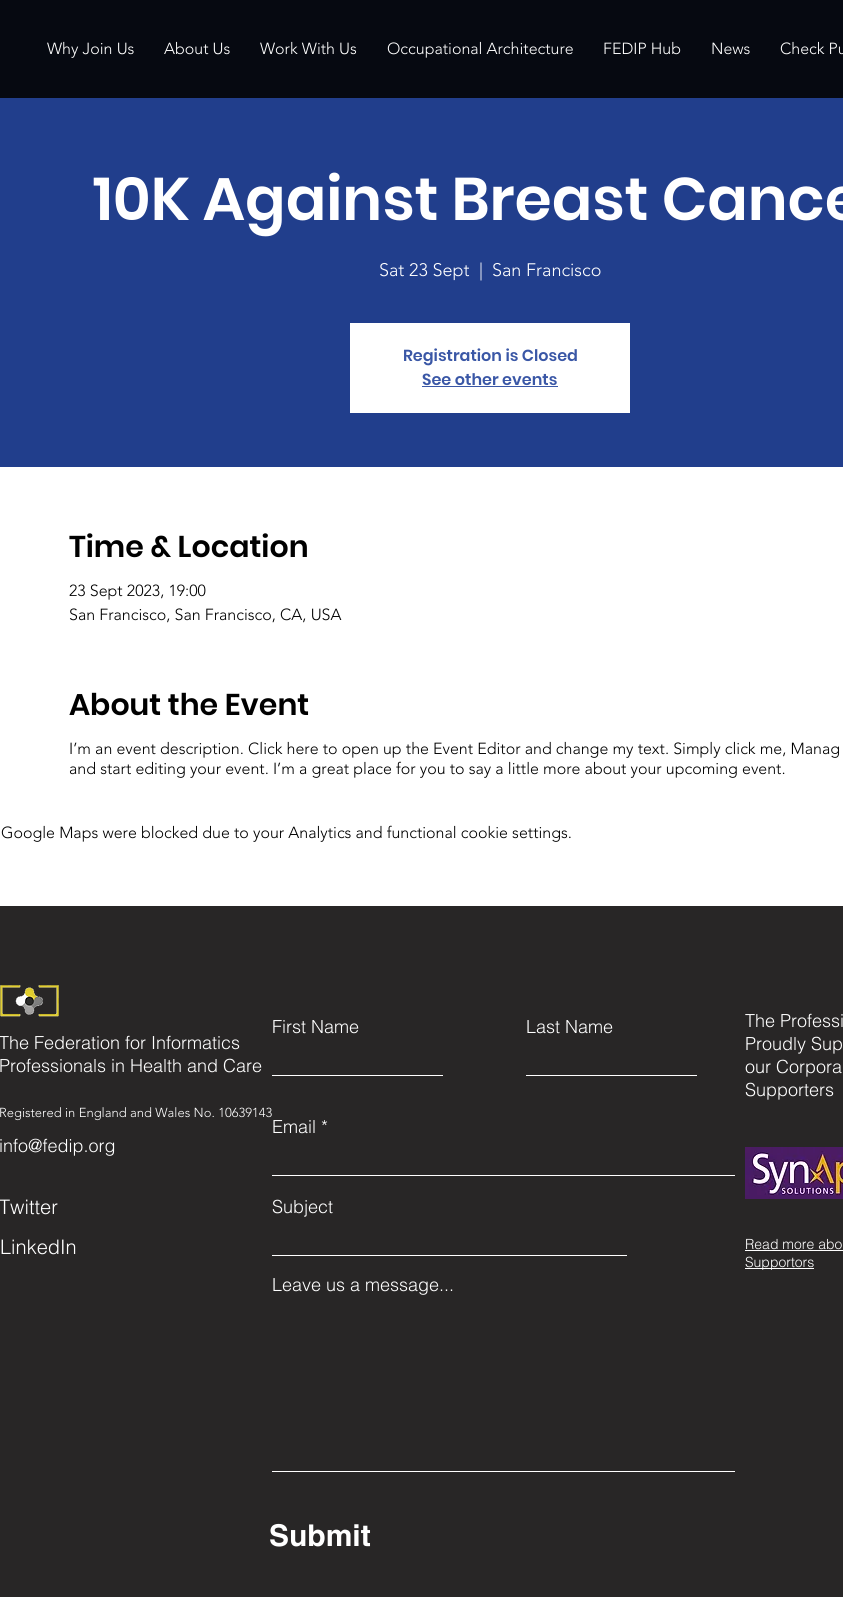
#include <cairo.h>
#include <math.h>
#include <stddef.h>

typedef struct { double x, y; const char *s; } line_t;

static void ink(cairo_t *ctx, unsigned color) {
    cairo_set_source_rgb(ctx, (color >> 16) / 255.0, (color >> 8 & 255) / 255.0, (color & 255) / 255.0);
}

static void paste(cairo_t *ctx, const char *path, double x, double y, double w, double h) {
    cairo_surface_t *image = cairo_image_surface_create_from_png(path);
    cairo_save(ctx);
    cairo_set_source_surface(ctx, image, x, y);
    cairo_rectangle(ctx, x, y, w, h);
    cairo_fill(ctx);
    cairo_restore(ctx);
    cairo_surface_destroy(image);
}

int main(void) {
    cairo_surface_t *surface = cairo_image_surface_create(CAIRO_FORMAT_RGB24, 843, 1597);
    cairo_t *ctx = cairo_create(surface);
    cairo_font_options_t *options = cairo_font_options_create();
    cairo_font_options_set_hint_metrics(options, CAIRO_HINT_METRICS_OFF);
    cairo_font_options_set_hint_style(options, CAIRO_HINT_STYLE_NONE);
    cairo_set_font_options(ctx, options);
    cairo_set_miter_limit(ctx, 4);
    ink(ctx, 0xFFFFFF);
    cairo_paint(ctx);
    ink(ctx, 0x060911);
    cairo_rectangle(ctx, 0, 0, 843, 98);
    cairo_fill(ctx);
    cairo_select_font_face(ctx, "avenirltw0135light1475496 Light", CAIRO_FONT_SLANT_NORMAL, CAIRO_FONT_WEIGHT_NORMAL);
    cairo_set_font_size(ctx, 16);
    ink(ctx, 0xFFFFFF);
    {
        static const line_t items[] = {
            {47, 54, "Why Join Us"},
            {164, 54, "About Us"},
            {260, 54, "Work With Us"},
            {387, 54, "Occupational Architecture"},
            {603, 54, "FEDIP Hub"},
            {711, 54, "News"},
            {780, 54, "Check Pu"},
        };
        for (size_t i = 0; i < sizeof items / sizeof *items; i++) {
            cairo_move_to(ctx, items[i].x, items[i].y);
            cairo_show_text(ctx, items[i].s);
        }
    }
    ink(ctx, 0x213E8C);
    cairo_rectangle(ctx, 0, 98, 843, 369);
    cairo_fill(ctx);
    cairo_select_font_face(ctx, "Poppins SemiBold", CAIRO_FONT_SLANT_NORMAL, CAIRO_FONT_WEIGHT_NORMAL);
    cairo_set_font_size(ctx, 60);
    ink(ctx, 0xFFFFFF);
    cairo_move_to(ctx, 93, 220);
    cairo_show_text(ctx, "10K Against Breast Cance");
    cairo_select_font_face(ctx, "avenirltw0135light1475496 Light", CAIRO_FONT_SLANT_NORMAL, CAIRO_FONT_WEIGHT_NORMAL);
    cairo_set_font_size(ctx, 18);
    {
        static const line_t items[] = {
            {379, 276, "Sat 23 Sept"},
            {479, 276, "|"},
            {492, 276, "San Francisco"},
        };
        for (size_t i = 0; i < sizeof items / sizeof *items; i++) {
            cairo_move_to(ctx, items[i].x, items[i].y);
            cairo_show_text(ctx, items[i].s);
        }
    }
    cairo_rectangle(ctx, 350, 323, 280, 90);
    cairo_fill(ctx);
    cairo_select_font_face(ctx, "Poppins SemiBold", CAIRO_FONT_SLANT_NORMAL, CAIRO_FONT_WEIGHT_NORMAL);
    cairo_set_font_size(ctx, 16);
    ink(ctx, 0x3A57A6);
    cairo_move_to(ctx, 403, 361);
    cairo_show_text(ctx, "Registration is Closed");
    cairo_move_to(ctx, 422, 385);
    cairo_show_text(ctx, "See other events");
    cairo_rectangle(ctx, 422, 386, 136, 1);
    cairo_fill(ctx);
    cairo_set_font_size(ctx, 30);
    ink(ctx, 0x000000);
    cairo_move_to(ctx, 69, 557);
    cairo_show_text(ctx, "Time & Location");
    cairo_select_font_face(ctx, "avenirltw0135light1475496 Light", CAIRO_FONT_SLANT_NORMAL, CAIRO_FONT_WEIGHT_NORMAL);
    cairo_set_font_size(ctx, 16);
    cairo_move_to(ctx, 69, 596);
    cairo_show_text(ctx, "23 Sept 2023, 19:00");
    cairo_move_to(ctx, 69, 620);
    cairo_show_text(ctx, "San Francisco, San Francisco, CA, USA");
    cairo_select_font_face(ctx, "Poppins SemiBold", CAIRO_FONT_SLANT_NORMAL, CAIRO_FONT_WEIGHT_NORMAL);
    cairo_set_font_size(ctx, 30);
    cairo_move_to(ctx, 69, 715);
    cairo_show_text(ctx, "About the Event");
    cairo_select_font_face(ctx, "avenirltw0135light1475496 Light", CAIRO_FONT_SLANT_NORMAL, CAIRO_FONT_WEIGHT_NORMAL);
    cairo_set_font_size(ctx, 16);
    {
        static const line_t items[] = {
            {69, 754, "I’m an event description. Click here to open up the Event Editor and change my text. Simply click me, Manag"},
            {69, 774, "and start editing your event. I’m a great place for you to say a little more about your upcoming event."},
            {1, 838, "Google Maps were blocked due to your Analytics and functional cookie settings."},
        };
        for (size_t i = 0; i < sizeof items / sizeof *items; i++) {
            cairo_move_to(ctx, items[i].x, items[i].y);
            cairo_show_text(ctx, items[i].s);
        }
    }
    ink(ctx, 0x282626);
    cairo_rectangle(ctx, 0, 906, 843, 691);
    cairo_fill(ctx);
    paste(ctx, "media/1.png", 0, 985, 59, 32);
    cairo_select_font_face(ctx, "helvetica Light", CAIRO_FONT_SLANT_NORMAL, CAIRO_FONT_WEIGHT_NORMAL);
    cairo_set_font_size(ctx, 18);
    ink(ctx, 0xFFFFFF);
    cairo_move_to(ctx, -1, 1049);
    cairo_show_text(ctx, "The Federation for Informatics");
    cairo_move_to(ctx, -1, 1072);
    cairo_show_text(ctx, "Professionals in Health and Care");
    cairo_select_font_face(ctx, "avenirltw0135light1475496 Light", CAIRO_FONT_SLANT_NORMAL, CAIRO_FONT_WEIGHT_NORMAL);
    cairo_set_font_size(ctx, 13);
    cairo_move_to(ctx, -1, 1117);
    cairo_show_text(ctx, "Registered in England and Wales No. 10639143");
    cairo_select_font_face(ctx, "helvetica Light", CAIRO_FONT_SLANT_NORMAL, CAIRO_FONT_WEIGHT_NORMAL);
    cairo_set_font_size(ctx, 18);
    cairo_move_to(ctx, -1, 1152);
    cairo_show_text(ctx, "info@fedip.org");
    cairo_set_font_size(ctx, 20);
    cairo_move_to(ctx, -1, 1214);
    cairo_show_text(ctx, "Twitter");
    cairo_move_to(ctx, 0, 1254);
    cairo_show_text(ctx, "LinkedIn");
    cairo_set_font_size(ctx, 18);
    cairo_move_to(ctx, 272, 1033);
    cairo_show_text(ctx, "First Name");
    cairo_rectangle(ctx, 272, 1075, 171, 1);
    cairo_fill(ctx);
    cairo_move_to(ctx, 526, 1033);
    cairo_show_text(ctx, "Last Name");
    cairo_rectangle(ctx, 526, 1075, 171, 1);
    cairo_fill(ctx);
    cairo_move_to(ctx, 272, 1133);
    cairo_show_text(ctx, "Email *");
    cairo_rectangle(ctx, 272, 1175, 463, 1);
    cairo_fill(ctx);
    cairo_move_to(ctx, 272, 1213);
    cairo_show_text(ctx, "Subject");
    cairo_rectangle(ctx, 272, 1255, 355, 1);
    cairo_fill(ctx);
    cairo_move_to(ctx, 272, 1291);
    cairo_show_text(ctx, "Leave us a message...");
    cairo_rectangle(ctx, 272, 1471, 463, 1);
    cairo_fill(ctx);
    cairo_select_font_face(ctx, "helvetica", CAIRO_FONT_SLANT_NORMAL, CAIRO_FONT_WEIGHT_BOLD);
    cairo_set_font_size(ctx, 30);
    cairo_move_to(ctx, 269, 1546);
    cairo_show_text(ctx, "Submit");
    cairo_select_font_face(ctx, "helvetica Light", CAIRO_FONT_SLANT_NORMAL, CAIRO_FONT_WEIGHT_NORMAL);
    cairo_set_font_size(ctx, 18);
    {
        static const line_t items[] = {
            {745, 1027, "The Professi"},
            {745, 1050, "Proudly Sup"},
            {745, 1073, "our Corpora"},
            {745, 1096, "Supporters"},
        };
        for (size_t i = 0; i < sizeof items / sizeof *items; i++) {
            cairo_move_to(ctx, items[i].x, items[i].y);
            cairo_show_text(ctx, items[i].s);
        }
    }
    paste(ctx, "media/2.png", 745, 1147, 98, 52);
    cairo_set_font_size(ctx, 14);
    cairo_move_to(ctx, 745, 1249);
    cairo_show_text(ctx, "Read more abo");
    cairo_rectangle(ctx, 745, 1250, 98, 1);
    cairo_fill(ctx);
    cairo_rectangle(ctx, 745, 1268, 69, 1);
    cairo_fill(ctx);
    cairo_move_to(ctx, 745, 1267);
    cairo_show_text(ctx, "Supportors");
    cairo_surface_write_to_png(surface, "image.png");
    cairo_font_options_destroy(options);
    cairo_destroy(ctx);
    cairo_surface_destroy(surface);
    return 0;
}
